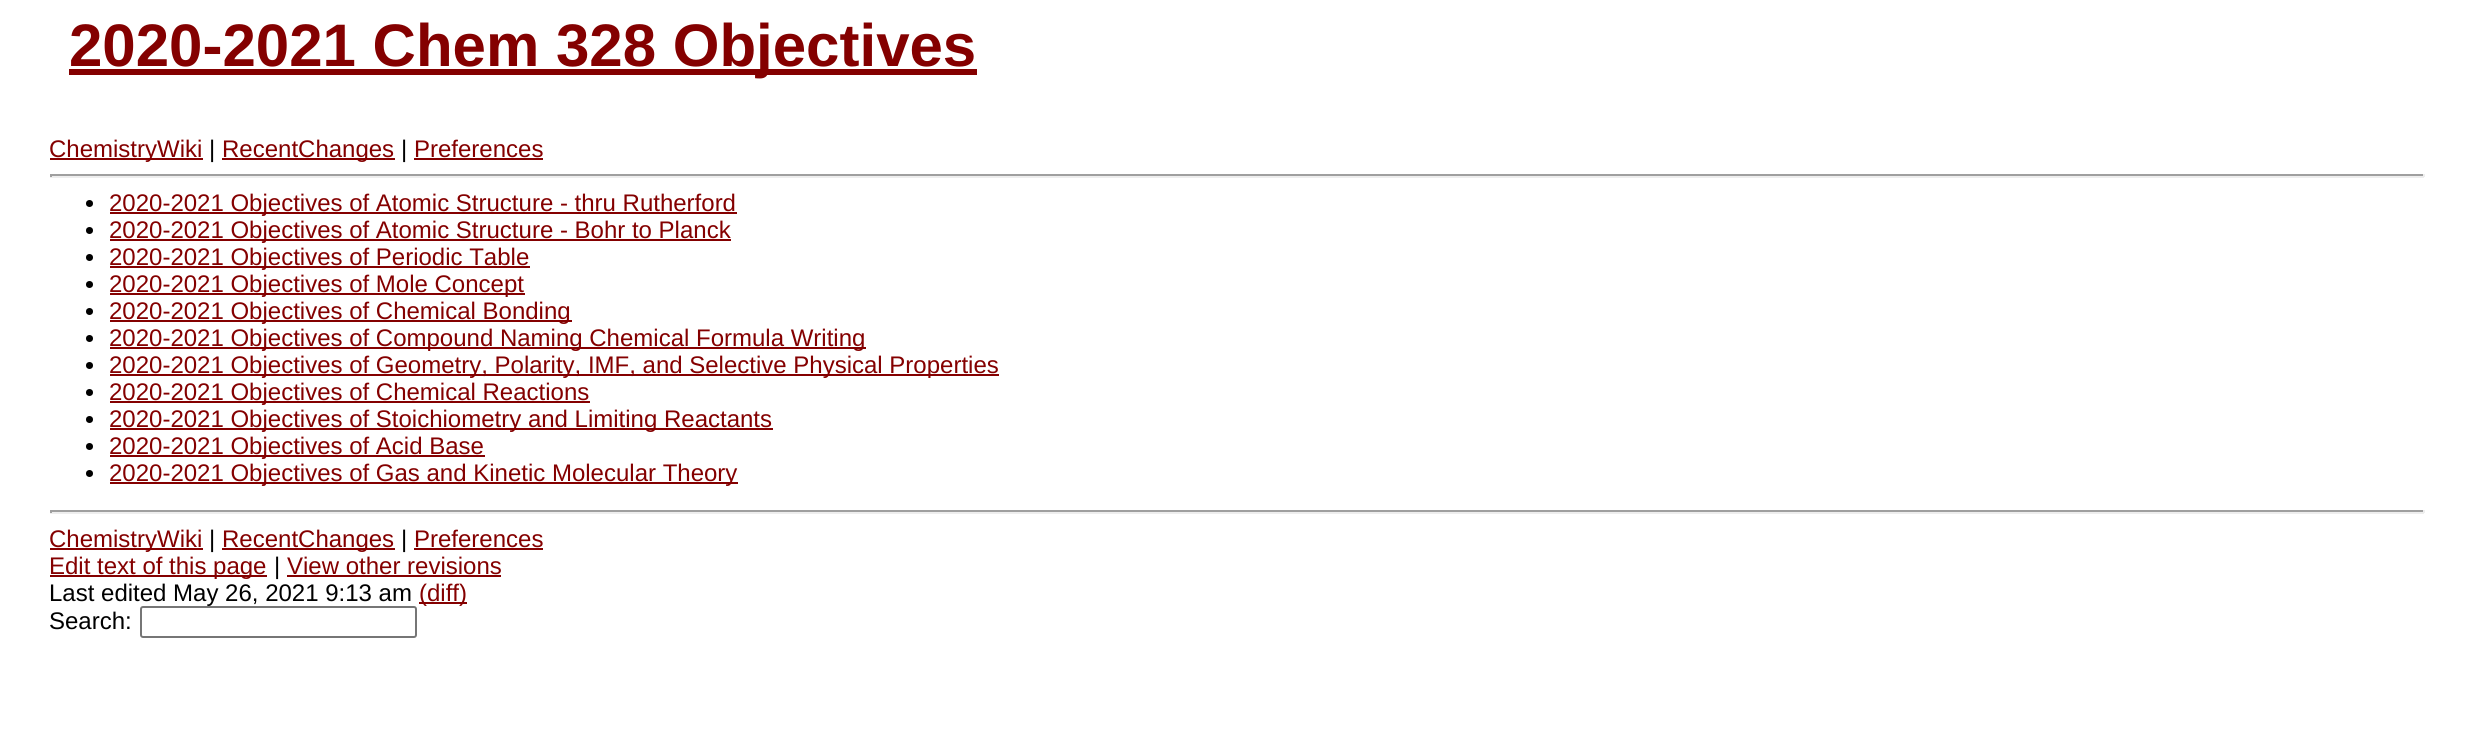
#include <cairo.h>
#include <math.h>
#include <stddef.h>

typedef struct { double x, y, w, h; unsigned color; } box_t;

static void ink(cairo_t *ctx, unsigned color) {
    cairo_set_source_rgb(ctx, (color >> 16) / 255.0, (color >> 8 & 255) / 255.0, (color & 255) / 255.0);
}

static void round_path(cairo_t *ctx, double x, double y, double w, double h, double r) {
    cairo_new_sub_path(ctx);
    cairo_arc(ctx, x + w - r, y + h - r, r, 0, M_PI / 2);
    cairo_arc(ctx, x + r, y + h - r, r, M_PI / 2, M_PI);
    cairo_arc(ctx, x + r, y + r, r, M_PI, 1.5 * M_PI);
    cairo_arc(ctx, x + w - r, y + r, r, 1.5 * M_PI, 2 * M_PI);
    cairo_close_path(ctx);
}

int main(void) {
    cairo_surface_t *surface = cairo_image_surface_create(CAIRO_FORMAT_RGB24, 2473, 732);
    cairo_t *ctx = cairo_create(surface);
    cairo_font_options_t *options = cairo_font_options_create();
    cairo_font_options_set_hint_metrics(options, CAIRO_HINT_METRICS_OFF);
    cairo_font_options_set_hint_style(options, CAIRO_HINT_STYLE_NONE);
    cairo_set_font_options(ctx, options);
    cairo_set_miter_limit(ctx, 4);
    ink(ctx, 0xFFFFFF);
    cairo_paint(ctx);
    ink(ctx, 0x840000);
    cairo_rectangle(ctx, 69, 69, 908, 6);
    cairo_fill(ctx);
    cairo_select_font_face(ctx, "Liberation Sans", CAIRO_FONT_SLANT_NORMAL, CAIRO_FONT_WEIGHT_BOLD);
    cairo_set_font_size(ctx, 60);
    cairo_move_to(ctx, 69, 66);
    cairo_show_text(ctx, "2020-2021 Chem 328 Objectives");
    cairo_rectangle(ctx, 50, 158, 153, 2);
    cairo_fill(ctx);
    cairo_select_font_face(ctx, "Liberation Sans", CAIRO_FONT_SLANT_NORMAL, CAIRO_FONT_WEIGHT_NORMAL);
    cairo_set_font_size(ctx, 24);
    cairo_move_to(ctx, 49, 157);
    cairo_show_text(ctx, "ChemistryWiki");
    ink(ctx, 0x000000);
    cairo_move_to(ctx, 209, 157);
    cairo_show_text(ctx, "|");
    ink(ctx, 0x840000);
    cairo_rectangle(ctx, 222, 158, 173, 2);
    cairo_fill(ctx);
    cairo_move_to(ctx, 222, 157);
    cairo_show_text(ctx, "RecentChanges");
    ink(ctx, 0x000000);
    cairo_move_to(ctx, 401, 157);
    cairo_show_text(ctx, "|");
    ink(ctx, 0x840000);
    cairo_move_to(ctx, 414, 157);
    cairo_show_text(ctx, "Preferences");
    {
        static const box_t items[] = {
            {414, 158, 129, 2, 0x840000},
            {50, 174, 2374, 2, 0x9F9F9F},
            {2423, 174, 2, 3, 0xEEEEEE},
            {50, 176, 2374, 2, 0xEEEEEE},
            {50, 174, 2, 3, 0x9F9F9F},
        };
        for (size_t i = 0; i < sizeof items / sizeof *items; i++) {
            ink(ctx, items[i].color);
            cairo_rectangle(ctx, items[i].x, items[i].y, items[i].w, items[i].h);
            cairo_fill(ctx);
        }
    }
    ink(ctx, 0x000000);
    cairo_new_path(ctx);
    cairo_arc(ctx, 89.5, 203.5, 3.5, 0, 2 * M_PI);
    cairo_fill(ctx);
    ink(ctx, 0x840000);
    cairo_rectangle(ctx, 110, 212, 627, 2);
    cairo_fill(ctx);
    cairo_move_to(ctx, 109, 211);
    cairo_show_text(ctx, "2020-2021 Objectives of Atomic Structure - thru Rutherford");
    ink(ctx, 0x000000);
    cairo_new_path(ctx);
    cairo_arc(ctx, 89.5, 230.5, 3.5, 0, 2 * M_PI);
    cairo_fill(ctx);
    ink(ctx, 0x840000);
    cairo_rectangle(ctx, 110, 239, 621, 2);
    cairo_fill(ctx);
    cairo_move_to(ctx, 109, 238);
    cairo_show_text(ctx, "2020-2021 Objectives of Atomic Structure - Bohr to Planck");
    ink(ctx, 0x000000);
    cairo_new_path(ctx);
    cairo_arc(ctx, 89.5, 257.5, 3.5, 0, 2 * M_PI);
    cairo_fill(ctx);
    ink(ctx, 0x840000);
    cairo_rectangle(ctx, 110, 266, 420, 2);
    cairo_fill(ctx);
    cairo_move_to(ctx, 109, 265);
    cairo_show_text(ctx, "2020-2021 Objectives of Periodic Table");
    ink(ctx, 0x000000);
    cairo_new_path(ctx);
    cairo_arc(ctx, 89.5, 284.5, 3.5, 0, 2 * M_PI);
    cairo_fill(ctx);
    ink(ctx, 0x840000);
    cairo_rectangle(ctx, 110, 293, 415, 2);
    cairo_fill(ctx);
    cairo_move_to(ctx, 109, 292);
    cairo_show_text(ctx, "2020-2021 Objectives of Mole Concept");
    ink(ctx, 0x000000);
    cairo_new_path(ctx);
    cairo_arc(ctx, 89.5, 311.5, 3.5, 0, 2 * M_PI);
    cairo_fill(ctx);
    ink(ctx, 0x840000);
    cairo_rectangle(ctx, 110, 320, 462, 2);
    cairo_fill(ctx);
    cairo_move_to(ctx, 109, 319);
    cairo_show_text(ctx, "2020-2021 Objectives of Chemical Bonding");
    ink(ctx, 0x000000);
    cairo_new_path(ctx);
    cairo_arc(ctx, 89.5, 338.5, 3.5, 0, 2 * M_PI);
    cairo_fill(ctx);
    ink(ctx, 0x840000);
    cairo_rectangle(ctx, 110, 347, 756, 2);
    cairo_fill(ctx);
    cairo_move_to(ctx, 109, 346);
    cairo_show_text(ctx, "2020-2021 Objectives of Compound Naming Chemical Formula Writing");
    ink(ctx, 0x000000);
    cairo_new_path(ctx);
    cairo_arc(ctx, 89.5, 365.5, 3.5, 0, 2 * M_PI);
    cairo_fill(ctx);
    ink(ctx, 0x840000);
    cairo_rectangle(ctx, 110, 374, 889, 2);
    cairo_fill(ctx);
    cairo_move_to(ctx, 109, 373);
    cairo_show_text(ctx, "2020-2021 Objectives of Geometry, Polarity, IMF, and Selective Physical Properties");
    ink(ctx, 0x000000);
    cairo_new_path(ctx);
    cairo_arc(ctx, 89.5, 392.5, 3.5, 0, 2 * M_PI);
    cairo_fill(ctx);
    ink(ctx, 0x840000);
    cairo_rectangle(ctx, 110, 401, 480, 2);
    cairo_fill(ctx);
    cairo_move_to(ctx, 109, 400);
    cairo_show_text(ctx, "2020-2021 Objectives of Chemical Reactions");
    ink(ctx, 0x000000);
    cairo_new_path(ctx);
    cairo_arc(ctx, 89.5, 419.5, 3.5, 0, 2 * M_PI);
    cairo_fill(ctx);
    ink(ctx, 0x840000);
    cairo_rectangle(ctx, 110, 428, 663, 2);
    cairo_fill(ctx);
    cairo_move_to(ctx, 109, 427);
    cairo_show_text(ctx, "2020-2021 Objectives of Stoichiometry and Limiting Reactants");
    ink(ctx, 0x000000);
    cairo_new_path(ctx);
    cairo_arc(ctx, 89.5, 446.5, 3.5, 0, 2 * M_PI);
    cairo_fill(ctx);
    ink(ctx, 0x840000);
    cairo_rectangle(ctx, 110, 455, 375, 2);
    cairo_fill(ctx);
    cairo_move_to(ctx, 109, 454);
    cairo_show_text(ctx, "2020-2021 Objectives of Acid Base");
    ink(ctx, 0x000000);
    cairo_new_path(ctx);
    cairo_arc(ctx, 89.5, 473.5, 3.5, 0, 2 * M_PI);
    cairo_fill(ctx);
    ink(ctx, 0x840000);
    cairo_rectangle(ctx, 110, 482, 628, 2);
    cairo_fill(ctx);
    cairo_move_to(ctx, 109, 481);
    cairo_show_text(ctx, "2020-2021 Objectives of Gas and Kinetic Molecular Theory");
    {
        static const box_t items[] = {
            {50, 510, 2374, 2, 0x9F9F9F},
            {2423, 510, 2, 3, 0xEEEEEE},
            {50, 512, 2374, 2, 0xEEEEEE},
            {50, 510, 2, 3, 0x9F9F9F},
            {50, 548, 153, 2, 0x840000},
        };
        for (size_t i = 0; i < sizeof items / sizeof *items; i++) {
            ink(ctx, items[i].color);
            cairo_rectangle(ctx, items[i].x, items[i].y, items[i].w, items[i].h);
            cairo_fill(ctx);
        }
    }
    cairo_move_to(ctx, 49, 547);
    cairo_show_text(ctx, "ChemistryWiki");
    ink(ctx, 0x000000);
    cairo_move_to(ctx, 209, 547);
    cairo_show_text(ctx, "|");
    ink(ctx, 0x840000);
    cairo_rectangle(ctx, 222, 548, 173, 2);
    cairo_fill(ctx);
    cairo_move_to(ctx, 222, 547);
    cairo_show_text(ctx, "RecentChanges");
    ink(ctx, 0x000000);
    cairo_move_to(ctx, 401, 547);
    cairo_show_text(ctx, "|");
    ink(ctx, 0x840000);
    cairo_move_to(ctx, 414, 547);
    cairo_show_text(ctx, "Preferences");
    cairo_rectangle(ctx, 414, 548, 129, 2);
    cairo_fill(ctx);
    cairo_rectangle(ctx, 50, 575, 217, 2);
    cairo_fill(ctx);
    cairo_move_to(ctx, 49, 574);
    cairo_show_text(ctx, "Edit text of this page");
    ink(ctx, 0x000000);
    cairo_move_to(ctx, 274, 574);
    cairo_show_text(ctx, "|");
    ink(ctx, 0x840000);
    cairo_move_to(ctx, 287, 574);
    cairo_show_text(ctx, "View other revisions");
    cairo_rectangle(ctx, 287, 575, 214, 2);
    cairo_fill(ctx);
    ink(ctx, 0x000000);
    cairo_move_to(ctx, 49, 601);
    cairo_show_text(ctx, "Last edited May 26, 2021 9:13 am");
    ink(ctx, 0x840000);
    cairo_rectangle(ctx, 419, 602, 48, 2);
    cairo_fill(ctx);
    cairo_move_to(ctx, 419, 601);
    cairo_show_text(ctx, "(diff)");
    ink(ctx, 0x000000);
    cairo_move_to(ctx, 49, 629);
    cairo_show_text(ctx, "Search:");
    round_path(ctx, 141, 607, 275, 30, 2);
    ink(ctx, 0x767676);
    cairo_stroke(ctx);
    cairo_surface_write_to_png(surface, "image.png");
    cairo_font_options_destroy(options);
    cairo_destroy(ctx);
    cairo_surface_destroy(surface);
    return 0;
}
